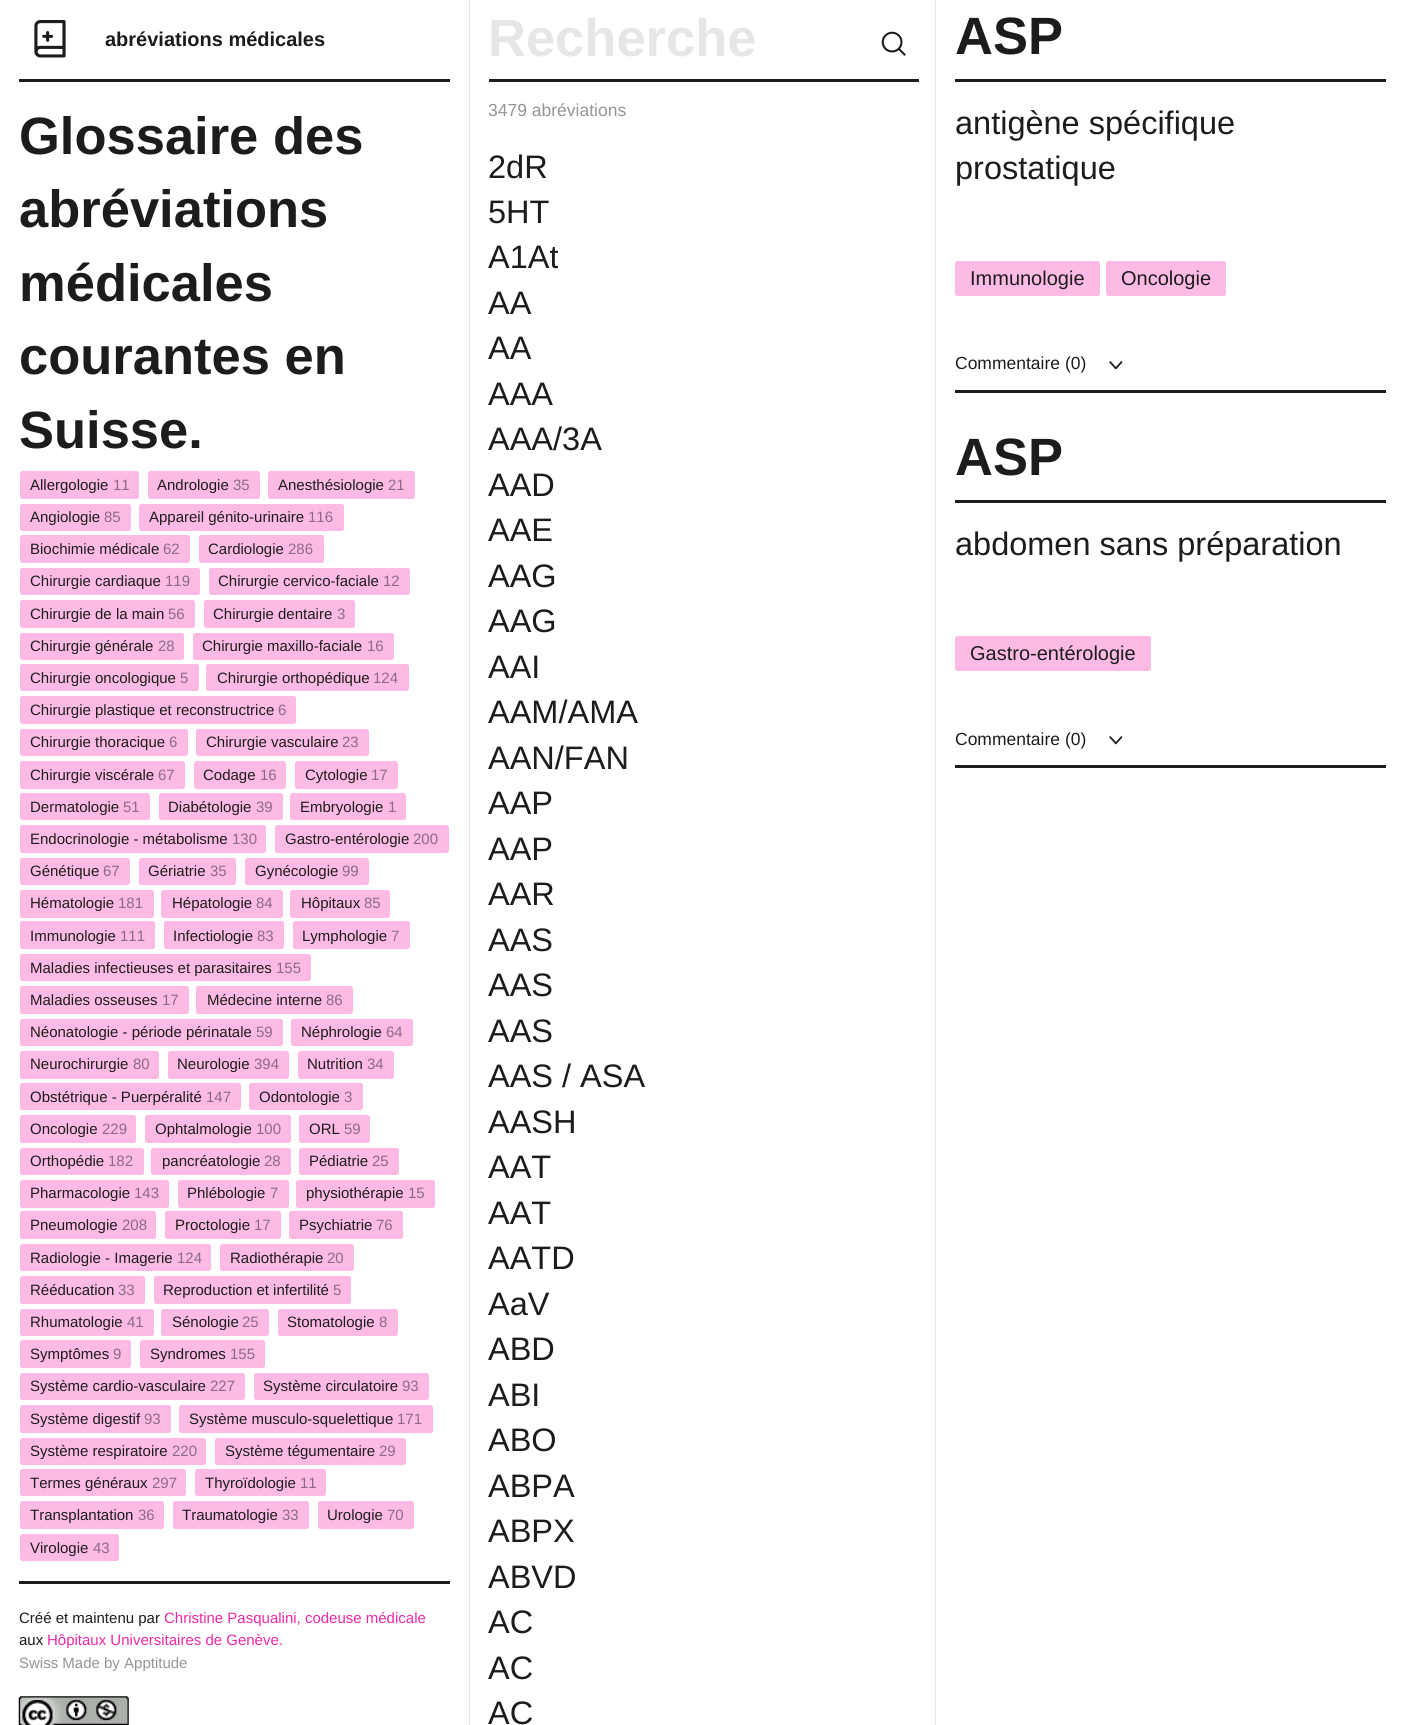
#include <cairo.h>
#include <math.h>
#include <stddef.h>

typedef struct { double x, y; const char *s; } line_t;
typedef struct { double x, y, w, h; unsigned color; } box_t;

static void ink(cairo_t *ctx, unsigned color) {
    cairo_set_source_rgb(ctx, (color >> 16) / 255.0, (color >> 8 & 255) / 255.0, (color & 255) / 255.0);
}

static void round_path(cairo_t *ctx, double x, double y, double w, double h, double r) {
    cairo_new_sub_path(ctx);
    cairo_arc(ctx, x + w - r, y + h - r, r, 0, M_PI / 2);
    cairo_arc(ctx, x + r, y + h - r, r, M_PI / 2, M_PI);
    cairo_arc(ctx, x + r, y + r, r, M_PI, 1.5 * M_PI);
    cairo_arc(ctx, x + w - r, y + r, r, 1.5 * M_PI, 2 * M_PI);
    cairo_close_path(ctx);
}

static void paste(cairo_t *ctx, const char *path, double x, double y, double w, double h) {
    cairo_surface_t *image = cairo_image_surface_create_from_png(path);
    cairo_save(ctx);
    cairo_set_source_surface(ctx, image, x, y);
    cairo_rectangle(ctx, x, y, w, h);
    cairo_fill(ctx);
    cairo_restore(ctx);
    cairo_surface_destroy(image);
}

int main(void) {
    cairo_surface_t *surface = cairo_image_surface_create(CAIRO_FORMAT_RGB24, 1404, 1725);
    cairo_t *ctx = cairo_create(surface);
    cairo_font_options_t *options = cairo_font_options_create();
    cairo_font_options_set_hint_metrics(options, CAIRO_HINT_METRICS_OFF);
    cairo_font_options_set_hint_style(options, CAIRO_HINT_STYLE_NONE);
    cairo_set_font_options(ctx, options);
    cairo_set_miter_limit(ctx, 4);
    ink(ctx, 0xFFFFFF);
    cairo_paint(ctx);
    ink(ctx, 0x1C1C1C);
    cairo_rectangle(ctx, 19, 79, 431, 3);
    cairo_fill(ctx);
    paste(ctx, "media/1.png", 34, 20, 32, 38);
    cairo_select_font_face(ctx, "Liberation Sans", CAIRO_FONT_SLANT_NORMAL, CAIRO_FONT_WEIGHT_BOLD);
    cairo_set_font_size(ctx, 20);
    cairo_move_to(ctx, 105, 46);
    cairo_show_text(ctx, "abréviations médicales");
    cairo_set_font_size(ctx, 52.5);
    {
        static const line_t items[] = {
            {19, 154, "Glossaire des"},
            {19, 227, "abréviations"},
            {19, 301, "médicales"},
            {19, 374, "courantes en"},
            {19, 448, "Suisse."},
        };
        for (size_t i = 0; i < sizeof items / sizeof *items; i++) {
            cairo_move_to(ctx, items[i].x, items[i].y);
            cairo_show_text(ctx, items[i].s);
        }
    }
    ink(ctx, 0xFCBAE5);
    round_path(ctx, 20, 471, 119, 28, 2.5);
    cairo_fill(ctx);
    cairo_select_font_face(ctx, "Liberation Sans", CAIRO_FONT_SLANT_NORMAL, CAIRO_FONT_WEIGHT_NORMAL);
    cairo_set_font_size(ctx, 15);
    ink(ctx, 0x1C1C1C);
    cairo_move_to(ctx, 30, 490);
    cairo_show_text(ctx, "Allergologie");
    ink(ctx, 0x8C6B81);
    cairo_move_to(ctx, 113, 490);
    cairo_show_text(ctx, "11");
    ink(ctx, 0xFCBAE5);
    round_path(ctx, 148, 471, 112, 28, 2.5);
    cairo_fill(ctx);
    ink(ctx, 0x1C1C1C);
    cairo_move_to(ctx, 157, 490);
    cairo_show_text(ctx, "Andrologie");
    ink(ctx, 0x8C6B81);
    cairo_move_to(ctx, 233, 490);
    cairo_show_text(ctx, "35");
    ink(ctx, 0xFCBAE5);
    round_path(ctx, 268, 471, 147, 28, 2.5);
    cairo_fill(ctx);
    ink(ctx, 0x1C1C1C);
    cairo_move_to(ctx, 278, 490);
    cairo_show_text(ctx, "Anesthésiologie");
    ink(ctx, 0x8C6B81);
    cairo_move_to(ctx, 388, 490);
    cairo_show_text(ctx, "21");
    ink(ctx, 0xFCBAE5);
    round_path(ctx, 20, 504, 111, 27, 2.5);
    cairo_fill(ctx);
    ink(ctx, 0x1C1C1C);
    cairo_move_to(ctx, 30, 522);
    cairo_show_text(ctx, "Angiologie");
    ink(ctx, 0x8C6B81);
    cairo_move_to(ctx, 104, 522);
    cairo_show_text(ctx, "85");
    ink(ctx, 0xFCBAE5);
    round_path(ctx, 139, 504, 205, 27, 2.5);
    cairo_fill(ctx);
    ink(ctx, 0x1C1C1C);
    cairo_move_to(ctx, 149, 522);
    cairo_show_text(ctx, "Appareil génito-urinaire");
    ink(ctx, 0x8C6B81);
    cairo_move_to(ctx, 308, 522);
    cairo_show_text(ctx, "116");
    ink(ctx, 0xFCBAE5);
    round_path(ctx, 20, 535, 170, 28, 2.5);
    cairo_fill(ctx);
    ink(ctx, 0x1C1C1C);
    cairo_move_to(ctx, 30, 554);
    cairo_show_text(ctx, "Biochimie médicale");
    ink(ctx, 0x8C6B81);
    cairo_move_to(ctx, 163, 554);
    cairo_show_text(ctx, "62");
    ink(ctx, 0xFCBAE5);
    round_path(ctx, 199, 535, 125, 28, 2.5);
    cairo_fill(ctx);
    ink(ctx, 0x1C1C1C);
    cairo_move_to(ctx, 208, 554);
    cairo_show_text(ctx, "Cardiologie");
    ink(ctx, 0x8C6B81);
    cairo_move_to(ctx, 288, 554);
    cairo_show_text(ctx, "286");
    ink(ctx, 0xFCBAE5);
    round_path(ctx, 20, 568, 180, 27, 2.5);
    cairo_fill(ctx);
    ink(ctx, 0x1C1C1C);
    cairo_move_to(ctx, 30, 586);
    cairo_show_text(ctx, "Chirurgie cardiaque");
    ink(ctx, 0x8C6B81);
    cairo_move_to(ctx, 165, 586);
    cairo_show_text(ctx, "119");
    ink(ctx, 0xFCBAE5);
    round_path(ctx, 209, 568, 201, 27, 2.5);
    cairo_fill(ctx);
    ink(ctx, 0x1C1C1C);
    cairo_move_to(ctx, 218, 586);
    cairo_show_text(ctx, "Chirurgie cervico-faciale");
    ink(ctx, 0x8C6B81);
    cairo_move_to(ctx, 383, 586);
    cairo_show_text(ctx, "12");
    ink(ctx, 0xFCBAE5);
    round_path(ctx, 20, 600, 175, 28, 2.5);
    cairo_fill(ctx);
    ink(ctx, 0x1C1C1C);
    cairo_move_to(ctx, 30, 619);
    cairo_show_text(ctx, "Chirurgie de la main");
    ink(ctx, 0x8C6B81);
    cairo_move_to(ctx, 168, 619);
    cairo_show_text(ctx, "56");
    ink(ctx, 0xFCBAE5);
    round_path(ctx, 204, 600, 151, 28, 2.5);
    cairo_fill(ctx);
    ink(ctx, 0x1C1C1C);
    cairo_move_to(ctx, 213, 619);
    cairo_show_text(ctx, "Chirurgie dentaire");
    ink(ctx, 0x8C6B81);
    cairo_move_to(ctx, 337, 619);
    cairo_show_text(ctx, "3");
    ink(ctx, 0xFCBAE5);
    round_path(ctx, 20, 633, 164, 27, 2.5);
    cairo_fill(ctx);
    ink(ctx, 0x1C1C1C);
    cairo_move_to(ctx, 30, 651);
    cairo_show_text(ctx, "Chirurgie générale");
    ink(ctx, 0x8C6B81);
    cairo_move_to(ctx, 158, 651);
    cairo_show_text(ctx, "28");
    ink(ctx, 0xFCBAE5);
    round_path(ctx, 193, 633, 201, 27, 2.5);
    cairo_fill(ctx);
    ink(ctx, 0x1C1C1C);
    cairo_move_to(ctx, 202, 651);
    cairo_show_text(ctx, "Chirurgie maxillo-faciale");
    ink(ctx, 0x8C6B81);
    cairo_move_to(ctx, 367, 651);
    cairo_show_text(ctx, "16");
    ink(ctx, 0xFCBAE5);
    round_path(ctx, 20, 664, 179, 27, 2.5);
    cairo_fill(ctx);
    ink(ctx, 0x1C1C1C);
    cairo_move_to(ctx, 30, 683);
    cairo_show_text(ctx, "Chirurgie oncologique");
    ink(ctx, 0x8C6B81);
    cairo_move_to(ctx, 180, 683);
    cairo_show_text(ctx, "5");
    ink(ctx, 0xFCBAE5);
    round_path(ctx, 206, 664, 203, 27, 2.5);
    cairo_fill(ctx);
    ink(ctx, 0x1C1C1C);
    cairo_move_to(ctx, 217, 683);
    cairo_show_text(ctx, "Chirurgie orthopédique");
    ink(ctx, 0x8C6B81);
    cairo_move_to(ctx, 373, 683);
    cairo_show_text(ctx, "124");
    ink(ctx, 0xFCBAE5);
    round_path(ctx, 20, 696, 276, 28, 2.5);
    cairo_fill(ctx);
    ink(ctx, 0x1C1C1C);
    cairo_move_to(ctx, 30, 715);
    cairo_show_text(ctx, "Chirurgie plastique et reconstructrice");
    ink(ctx, 0x8C6B81);
    cairo_move_to(ctx, 278, 715);
    cairo_show_text(ctx, "6");
    ink(ctx, 0xFCBAE5);
    round_path(ctx, 20, 729, 168, 27, 2.5);
    cairo_fill(ctx);
    ink(ctx, 0x1C1C1C);
    cairo_move_to(ctx, 30, 747);
    cairo_show_text(ctx, "Chirurgie thoracique");
    ink(ctx, 0x8C6B81);
    cairo_move_to(ctx, 169, 747);
    cairo_show_text(ctx, "6");
    ink(ctx, 0xFCBAE5);
    round_path(ctx, 196, 729, 173, 27, 2.5);
    cairo_fill(ctx);
    ink(ctx, 0x1C1C1C);
    cairo_move_to(ctx, 206, 747);
    cairo_show_text(ctx, "Chirurgie vasculaire");
    ink(ctx, 0x8C6B81);
    cairo_move_to(ctx, 342, 747);
    cairo_show_text(ctx, "23");
    ink(ctx, 0xFCBAE5);
    round_path(ctx, 20, 761, 165, 28, 2.5);
    cairo_fill(ctx);
    ink(ctx, 0x1C1C1C);
    cairo_move_to(ctx, 30, 780);
    cairo_show_text(ctx, "Chirurgie viscérale");
    ink(ctx, 0x8C6B81);
    cairo_move_to(ctx, 158, 780);
    cairo_show_text(ctx, "67");
    ink(ctx, 0xFCBAE5);
    round_path(ctx, 194, 761, 92, 28, 2.5);
    cairo_fill(ctx);
    ink(ctx, 0x1C1C1C);
    cairo_move_to(ctx, 203, 780);
    cairo_show_text(ctx, "Codage");
    ink(ctx, 0x8C6B81);
    cairo_move_to(ctx, 260, 780);
    cairo_show_text(ctx, "16");
    ink(ctx, 0xFCBAE5);
    round_path(ctx, 295, 761, 103, 28, 2.5);
    cairo_fill(ctx);
    ink(ctx, 0x1C1C1C);
    cairo_move_to(ctx, 305, 780);
    cairo_show_text(ctx, "Cytologie");
    ink(ctx, 0x8C6B81);
    cairo_move_to(ctx, 371, 780);
    cairo_show_text(ctx, "17");
    ink(ctx, 0xFCBAE5);
    round_path(ctx, 20, 793, 130, 27, 2.5);
    cairo_fill(ctx);
    ink(ctx, 0x1C1C1C);
    cairo_move_to(ctx, 30, 812);
    cairo_show_text(ctx, "Dermatologie");
    ink(ctx, 0x8C6B81);
    cairo_move_to(ctx, 123, 812);
    cairo_show_text(ctx, "51");
    ink(ctx, 0xFCBAE5);
    round_path(ctx, 159, 793, 124, 27, 2.5);
    cairo_fill(ctx);
    ink(ctx, 0x1C1C1C);
    cairo_move_to(ctx, 168, 812);
    cairo_show_text(ctx, "Diabétologie");
    ink(ctx, 0x8C6B81);
    cairo_move_to(ctx, 256, 812);
    cairo_show_text(ctx, "39");
    ink(ctx, 0xFCBAE5);
    round_path(ctx, 290, 793, 116, 27, 2.5);
    cairo_fill(ctx);
    ink(ctx, 0x1C1C1C);
    cairo_move_to(ctx, 300, 812);
    cairo_show_text(ctx, "Embryologie");
    ink(ctx, 0x8C6B81);
    cairo_move_to(ctx, 388, 812);
    cairo_show_text(ctx, "1");
    ink(ctx, 0xFCBAE5);
    round_path(ctx, 20, 825, 246, 28, 2.5);
    cairo_fill(ctx);
    ink(ctx, 0x1C1C1C);
    cairo_move_to(ctx, 30, 844);
    cairo_show_text(ctx, "Endocrinologie - métabolisme");
    ink(ctx, 0x8C6B81);
    cairo_move_to(ctx, 232, 844);
    cairo_show_text(ctx, "130");
    ink(ctx, 0xFCBAE5);
    round_path(ctx, 275, 825, 174, 28, 2.5);
    cairo_fill(ctx);
    ink(ctx, 0x1C1C1C);
    cairo_move_to(ctx, 285, 844);
    cairo_show_text(ctx, "Gastro-entérologie");
    ink(ctx, 0x8C6B81);
    cairo_move_to(ctx, 413, 844);
    cairo_show_text(ctx, "200");
    ink(ctx, 0xFCBAE5);
    round_path(ctx, 20, 858, 110, 27, 2.5);
    cairo_fill(ctx);
    ink(ctx, 0x1C1C1C);
    cairo_move_to(ctx, 30, 876);
    cairo_show_text(ctx, "Génétique");
    ink(ctx, 0x8C6B81);
    cairo_move_to(ctx, 103, 876);
    cairo_show_text(ctx, "67");
    ink(ctx, 0xFCBAE5);
    round_path(ctx, 139, 858, 97, 27, 2.5);
    cairo_fill(ctx);
    ink(ctx, 0x1C1C1C);
    cairo_move_to(ctx, 148, 876);
    cairo_show_text(ctx, "Gériatrie");
    ink(ctx, 0x8C6B81);
    cairo_move_to(ctx, 210, 876);
    cairo_show_text(ctx, "35");
    ink(ctx, 0xFCBAE5);
    round_path(ctx, 245, 858, 124, 27, 2.5);
    cairo_fill(ctx);
    ink(ctx, 0x1C1C1C);
    cairo_move_to(ctx, 255, 876);
    cairo_show_text(ctx, "Gynécologie");
    ink(ctx, 0x8C6B81);
    cairo_move_to(ctx, 342, 876);
    cairo_show_text(ctx, "99");
    ink(ctx, 0xFCBAE5);
    round_path(ctx, 20, 890, 134, 28, 2.5);
    cairo_fill(ctx);
    ink(ctx, 0x1C1C1C);
    cairo_move_to(ctx, 30, 908);
    cairo_show_text(ctx, "Hématologie");
    ink(ctx, 0x8C6B81);
    cairo_move_to(ctx, 118, 908);
    cairo_show_text(ctx, "181");
    ink(ctx, 0xFCBAE5);
    round_path(ctx, 161, 890, 122, 28, 2.5);
    cairo_fill(ctx);
    ink(ctx, 0x1C1C1C);
    cairo_move_to(ctx, 172, 908);
    cairo_show_text(ctx, "Hépatologie");
    ink(ctx, 0x8C6B81);
    cairo_move_to(ctx, 256, 908);
    cairo_show_text(ctx, "84");
    ink(ctx, 0xFCBAE5);
    round_path(ctx, 290, 890, 100, 28, 2.5);
    cairo_fill(ctx);
    ink(ctx, 0x1C1C1C);
    cairo_move_to(ctx, 301, 908);
    cairo_show_text(ctx, "Hôpitaux");
    ink(ctx, 0x8C6B81);
    cairo_move_to(ctx, 364, 908);
    cairo_show_text(ctx, "85");
    ink(ctx, 0xFCBAE5);
    round_path(ctx, 20, 921, 135, 28, 2.5);
    cairo_fill(ctx);
    ink(ctx, 0x1C1C1C);
    cairo_move_to(ctx, 30, 941);
    cairo_show_text(ctx, "Immunologie");
    ink(ctx, 0x8C6B81);
    cairo_move_to(ctx, 120, 941);
    cairo_show_text(ctx, "111");
    ink(ctx, 0xFCBAE5);
    round_path(ctx, 164, 921, 120, 28, 2.5);
    cairo_fill(ctx);
    ink(ctx, 0x1C1C1C);
    cairo_move_to(ctx, 173, 941);
    cairo_show_text(ctx, "Infectiologie");
    ink(ctx, 0x8C6B81);
    cairo_move_to(ctx, 257, 941);
    cairo_show_text(ctx, "83");
    ink(ctx, 0xFCBAE5);
    round_path(ctx, 293, 921, 117, 28, 2.5);
    cairo_fill(ctx);
    ink(ctx, 0x1C1C1C);
    cairo_move_to(ctx, 302, 941);
    cairo_show_text(ctx, "Lymphologie");
    ink(ctx, 0x8C6B81);
    cairo_move_to(ctx, 391, 941);
    cairo_show_text(ctx, "7");
    ink(ctx, 0xFCBAE5);
    round_path(ctx, 20, 954, 291, 27, 2.5);
    cairo_fill(ctx);
    ink(ctx, 0x1C1C1C);
    cairo_move_to(ctx, 30, 973);
    cairo_show_text(ctx, "Maladies infectieuses et parasitaires");
    ink(ctx, 0x8C6B81);
    cairo_move_to(ctx, 276, 973);
    cairo_show_text(ctx, "155");
    ink(ctx, 0xFCBAE5);
    round_path(ctx, 20, 986, 169, 28, 2.5);
    cairo_fill(ctx);
    ink(ctx, 0x1C1C1C);
    cairo_move_to(ctx, 30, 1005);
    cairo_show_text(ctx, "Maladies osseuses");
    ink(ctx, 0x8C6B81);
    cairo_move_to(ctx, 162, 1005);
    cairo_show_text(ctx, "17");
    ink(ctx, 0xFCBAE5);
    round_path(ctx, 196, 986, 157, 28, 2.5);
    cairo_fill(ctx);
    ink(ctx, 0x1C1C1C);
    cairo_move_to(ctx, 207, 1005);
    cairo_show_text(ctx, "Médecine interne");
    ink(ctx, 0x8C6B81);
    cairo_move_to(ctx, 326, 1005);
    cairo_show_text(ctx, "86");
    ink(ctx, 0xFCBAE5);
    round_path(ctx, 20, 1019, 263, 27, 2.5);
    cairo_fill(ctx);
    ink(ctx, 0x1C1C1C);
    cairo_move_to(ctx, 30, 1037);
    cairo_show_text(ctx, "Néonatologie - période périnatale");
    ink(ctx, 0x8C6B81);
    cairo_move_to(ctx, 256, 1037);
    cairo_show_text(ctx, "59");
    ink(ctx, 0xFCBAE5);
    round_path(ctx, 291, 1019, 122, 27, 2.5);
    cairo_fill(ctx);
    ink(ctx, 0x1C1C1C);
    cairo_move_to(ctx, 301, 1037);
    cairo_show_text(ctx, "Néphrologie");
    ink(ctx, 0x8C6B81);
    cairo_move_to(ctx, 386, 1037);
    cairo_show_text(ctx, "64");
    ink(ctx, 0xFCBAE5);
    round_path(ctx, 20, 1051, 139, 28, 2.5);
    cairo_fill(ctx);
    ink(ctx, 0x1C1C1C);
    cairo_move_to(ctx, 30, 1069);
    cairo_show_text(ctx, "Neurochirurgie");
    ink(ctx, 0x8C6B81);
    cairo_move_to(ctx, 133, 1069);
    cairo_show_text(ctx, "80");
    ink(ctx, 0xFCBAE5);
    round_path(ctx, 168, 1051, 121, 28, 2.5);
    cairo_fill(ctx);
    ink(ctx, 0x1C1C1C);
    cairo_move_to(ctx, 177, 1069);
    cairo_show_text(ctx, "Neurologie");
    ink(ctx, 0x8C6B81);
    cairo_move_to(ctx, 254, 1069);
    cairo_show_text(ctx, "394");
    ink(ctx, 0xFCBAE5);
    round_path(ctx, 298, 1051, 96, 28, 2.5);
    cairo_fill(ctx);
    ink(ctx, 0x1C1C1C);
    cairo_move_to(ctx, 307, 1069);
    cairo_show_text(ctx, "Nutrition");
    ink(ctx, 0x8C6B81);
    cairo_move_to(ctx, 367, 1069);
    cairo_show_text(ctx, "34");
    ink(ctx, 0xFCBAE5);
    round_path(ctx, 20, 1083, 221, 27, 2.5);
    cairo_fill(ctx);
    ink(ctx, 0x1C1C1C);
    cairo_move_to(ctx, 30, 1102);
    cairo_show_text(ctx, "Obstétrique - Puerpéralité");
    ink(ctx, 0x8C6B81);
    cairo_move_to(ctx, 206, 1102);
    cairo_show_text(ctx, "147");
    ink(ctx, 0xFCBAE5);
    round_path(ctx, 249, 1083, 114, 27, 2.5);
    cairo_fill(ctx);
    ink(ctx, 0x1C1C1C);
    cairo_move_to(ctx, 259, 1102);
    cairo_show_text(ctx, "Odontologie");
    ink(ctx, 0x8C6B81);
    cairo_move_to(ctx, 344, 1102);
    cairo_show_text(ctx, "3");
    ink(ctx, 0xFCBAE5);
    round_path(ctx, 20, 1115, 116, 28, 2.5);
    cairo_fill(ctx);
    ink(ctx, 0x1C1C1C);
    cairo_move_to(ctx, 30, 1134);
    cairo_show_text(ctx, "Oncologie");
    ink(ctx, 0x8C6B81);
    cairo_move_to(ctx, 102, 1134);
    cairo_show_text(ctx, "229");
    ink(ctx, 0xFCBAE5);
    round_path(ctx, 145, 1115, 146, 28, 2.5);
    cairo_fill(ctx);
    ink(ctx, 0x1C1C1C);
    cairo_move_to(ctx, 155, 1134);
    cairo_show_text(ctx, "Ophtalmologie");
    ink(ctx, 0x8C6B81);
    cairo_move_to(ctx, 256, 1134);
    cairo_show_text(ctx, "100");
    ink(ctx, 0xFCBAE5);
    round_path(ctx, 299, 1115, 71, 28, 2.5);
    cairo_fill(ctx);
    ink(ctx, 0x1C1C1C);
    cairo_move_to(ctx, 309, 1134);
    cairo_show_text(ctx, "ORL");
    ink(ctx, 0x8C6B81);
    cairo_move_to(ctx, 344, 1134);
    cairo_show_text(ctx, "59");
    ink(ctx, 0xFCBAE5);
    round_path(ctx, 20, 1148, 124, 27, 2.5);
    cairo_fill(ctx);
    ink(ctx, 0x1C1C1C);
    cairo_move_to(ctx, 30, 1166);
    cairo_show_text(ctx, "Orthopédie");
    ink(ctx, 0x8C6B81);
    cairo_move_to(ctx, 108, 1166);
    cairo_show_text(ctx, "182");
    ink(ctx, 0xFCBAE5);
    round_path(ctx, 151, 1148, 140, 27, 2.5);
    cairo_fill(ctx);
    ink(ctx, 0x1C1C1C);
    cairo_move_to(ctx, 162, 1166);
    cairo_show_text(ctx, "pancréatologie");
    ink(ctx, 0x8C6B81);
    cairo_move_to(ctx, 264, 1166);
    cairo_show_text(ctx, "28");
    ink(ctx, 0xFCBAE5);
    round_path(ctx, 299, 1148, 100, 27, 2.5);
    cairo_fill(ctx);
    ink(ctx, 0x1C1C1C);
    cairo_move_to(ctx, 309, 1166);
    cairo_show_text(ctx, "Pédiatrie");
    ink(ctx, 0x8C6B81);
    cairo_move_to(ctx, 372, 1166);
    cairo_show_text(ctx, "25");
    ink(ctx, 0xFCBAE5);
    round_path(ctx, 20, 1180, 149, 28, 2.5);
    cairo_fill(ctx);
    ink(ctx, 0x1C1C1C);
    cairo_move_to(ctx, 30, 1198);
    cairo_show_text(ctx, "Pharmacologie");
    ink(ctx, 0x8C6B81);
    cairo_move_to(ctx, 134, 1198);
    cairo_show_text(ctx, "143");
    ink(ctx, 0xFCBAE5);
    round_path(ctx, 178, 1180, 111, 28, 2.5);
    cairo_fill(ctx);
    ink(ctx, 0x1C1C1C);
    cairo_move_to(ctx, 187, 1198);
    cairo_show_text(ctx, "Phlébologie");
    ink(ctx, 0x8C6B81);
    cairo_move_to(ctx, 270, 1198);
    cairo_show_text(ctx, "7");
    ink(ctx, 0xFCBAE5);
    round_path(ctx, 296, 1180, 139, 28, 2.5);
    cairo_fill(ctx);
    ink(ctx, 0x1C1C1C);
    cairo_move_to(ctx, 306, 1198);
    cairo_show_text(ctx, "physiothérapie");
    ink(ctx, 0x8C6B81);
    cairo_move_to(ctx, 408, 1198);
    cairo_show_text(ctx, "15");
    ink(ctx, 0xFCBAE5);
    round_path(ctx, 20, 1211, 136, 28, 2.5);
    cairo_fill(ctx);
    ink(ctx, 0x1C1C1C);
    cairo_move_to(ctx, 30, 1230);
    cairo_show_text(ctx, "Pneumologie");
    ink(ctx, 0x8C6B81);
    cairo_move_to(ctx, 122, 1230);
    cairo_show_text(ctx, "208");
    ink(ctx, 0xFCBAE5);
    round_path(ctx, 165, 1211, 116, 28, 2.5);
    cairo_fill(ctx);
    ink(ctx, 0x1C1C1C);
    cairo_move_to(ctx, 175, 1230);
    cairo_show_text(ctx, "Proctologie");
    ink(ctx, 0x8C6B81);
    cairo_move_to(ctx, 254, 1230);
    cairo_show_text(ctx, "17");
    ink(ctx, 0xFCBAE5);
    round_path(ctx, 289, 1211, 114, 28, 2.5);
    cairo_fill(ctx);
    ink(ctx, 0x1C1C1C);
    cairo_move_to(ctx, 299, 1230);
    cairo_show_text(ctx, "Psychiatrie");
    ink(ctx, 0x8C6B81);
    cairo_move_to(ctx, 376, 1230);
    cairo_show_text(ctx, "76");
    ink(ctx, 0xFCBAE5);
    round_path(ctx, 20, 1244, 191, 27, 2.5);
    cairo_fill(ctx);
    ink(ctx, 0x1C1C1C);
    cairo_move_to(ctx, 30, 1263);
    cairo_show_text(ctx, "Radiologie - Imagerie");
    ink(ctx, 0x8C6B81);
    cairo_move_to(ctx, 177, 1263);
    cairo_show_text(ctx, "124");
    ink(ctx, 0xFCBAE5);
    round_path(ctx, 220, 1244, 134, 27, 2.5);
    cairo_fill(ctx);
    ink(ctx, 0x1C1C1C);
    cairo_move_to(ctx, 230, 1263);
    cairo_show_text(ctx, "Radiothérapie");
    ink(ctx, 0x8C6B81);
    cairo_move_to(ctx, 327, 1263);
    cairo_show_text(ctx, "20");
    ink(ctx, 0xFCBAE5);
    round_path(ctx, 20, 1276, 125, 28, 2.5);
    cairo_fill(ctx);
    ink(ctx, 0x1C1C1C);
    cairo_move_to(ctx, 30, 1295);
    cairo_show_text(ctx, "Rééducation");
    ink(ctx, 0x8C6B81);
    cairo_move_to(ctx, 118, 1295);
    cairo_show_text(ctx, "33");
    ink(ctx, 0xFCBAE5);
    round_path(ctx, 154, 1276, 197, 28, 2.5);
    cairo_fill(ctx);
    ink(ctx, 0x1C1C1C);
    cairo_move_to(ctx, 163, 1295);
    cairo_show_text(ctx, "Reproduction et infertilité");
    ink(ctx, 0x8C6B81);
    cairo_move_to(ctx, 333, 1295);
    cairo_show_text(ctx, "5");
    ink(ctx, 0xFCBAE5);
    round_path(ctx, 20, 1309, 134, 27, 2.5);
    cairo_fill(ctx);
    ink(ctx, 0x1C1C1C);
    cairo_move_to(ctx, 30, 1327);
    cairo_show_text(ctx, "Rhumatologie");
    ink(ctx, 0x8C6B81);
    cairo_move_to(ctx, 127, 1327);
    cairo_show_text(ctx, "41");
    ink(ctx, 0xFCBAE5);
    round_path(ctx, 161, 1309, 108, 27, 2.5);
    cairo_fill(ctx);
    ink(ctx, 0x1C1C1C);
    cairo_move_to(ctx, 172, 1327);
    cairo_show_text(ctx, "Sénologie");
    ink(ctx, 0x8C6B81);
    cairo_move_to(ctx, 242, 1327);
    cairo_show_text(ctx, "25");
    ink(ctx, 0xFCBAE5);
    round_path(ctx, 278, 1309, 120, 27, 2.5);
    cairo_fill(ctx);
    ink(ctx, 0x1C1C1C);
    cairo_move_to(ctx, 287, 1327);
    cairo_show_text(ctx, "Stomatologie");
    ink(ctx, 0x8C6B81);
    cairo_move_to(ctx, 379, 1327);
    cairo_show_text(ctx, "8");
    ink(ctx, 0xFCBAE5);
    round_path(ctx, 20, 1340, 111, 28, 2.5);
    cairo_fill(ctx);
    ink(ctx, 0x1C1C1C);
    cairo_move_to(ctx, 30, 1359);
    cairo_show_text(ctx, "Symptômes");
    ink(ctx, 0x8C6B81);
    cairo_move_to(ctx, 113, 1359);
    cairo_show_text(ctx, "9");
    ink(ctx, 0xFCBAE5);
    round_path(ctx, 140, 1340, 125, 28, 2.5);
    cairo_fill(ctx);
    ink(ctx, 0x1C1C1C);
    cairo_move_to(ctx, 150, 1359);
    cairo_show_text(ctx, "Syndromes");
    ink(ctx, 0x8C6B81);
    cairo_move_to(ctx, 230, 1359);
    cairo_show_text(ctx, "155");
    ink(ctx, 0xFCBAE5);
    round_path(ctx, 20, 1373, 225, 27, 2.5);
    cairo_fill(ctx);
    ink(ctx, 0x1C1C1C);
    cairo_move_to(ctx, 30, 1391);
    cairo_show_text(ctx, "Système cardio-vasculaire");
    ink(ctx, 0x8C6B81);
    cairo_move_to(ctx, 210, 1391);
    cairo_show_text(ctx, "227");
    ink(ctx, 0xFCBAE5);
    round_path(ctx, 254, 1373, 175, 27, 2.5);
    cairo_fill(ctx);
    ink(ctx, 0x1C1C1C);
    cairo_move_to(ctx, 263, 1391);
    cairo_show_text(ctx, "Système circulatoire");
    ink(ctx, 0x8C6B81);
    cairo_move_to(ctx, 402, 1391);
    cairo_show_text(ctx, "93");
    ink(ctx, 0xFCBAE5);
    round_path(ctx, 20, 1405, 151, 28, 2.5);
    cairo_fill(ctx);
    ink(ctx, 0x1C1C1C);
    cairo_move_to(ctx, 30, 1424);
    cairo_show_text(ctx, "Système digestif");
    ink(ctx, 0x8C6B81);
    cairo_move_to(ctx, 144, 1424);
    cairo_show_text(ctx, "93");
    ink(ctx, 0xFCBAE5);
    round_path(ctx, 179, 1405, 254, 28, 2.5);
    cairo_fill(ctx);
    ink(ctx, 0x1C1C1C);
    cairo_move_to(ctx, 189, 1424);
    cairo_show_text(ctx, "Système musculo-squelettique");
    ink(ctx, 0x8C6B81);
    cairo_move_to(ctx, 397, 1424);
    cairo_show_text(ctx, "171");
    ink(ctx, 0xFCBAE5);
    round_path(ctx, 20, 1438, 186, 27, 2.5);
    cairo_fill(ctx);
    ink(ctx, 0x1C1C1C);
    cairo_move_to(ctx, 30, 1456);
    cairo_show_text(ctx, "Système respiratoire");
    ink(ctx, 0x8C6B81);
    cairo_move_to(ctx, 172, 1456);
    cairo_show_text(ctx, "220");
    ink(ctx, 0xFCBAE5);
    round_path(ctx, 215, 1438, 191, 27, 2.5);
    cairo_fill(ctx);
    ink(ctx, 0x1C1C1C);
    cairo_move_to(ctx, 225, 1456);
    cairo_show_text(ctx, "Système tégumentaire");
    ink(ctx, 0x8C6B81);
    cairo_move_to(ctx, 379, 1456);
    cairo_show_text(ctx, "29");
    ink(ctx, 0xFCBAE5);
    round_path(ctx, 20, 1469, 166, 27, 2.5);
    cairo_fill(ctx);
    ink(ctx, 0x1C1C1C);
    cairo_move_to(ctx, 30, 1488);
    cairo_show_text(ctx, "Termes généraux");
    ink(ctx, 0x8C6B81);
    cairo_move_to(ctx, 152, 1488);
    cairo_show_text(ctx, "297");
    ink(ctx, 0xFCBAE5);
    round_path(ctx, 195, 1469, 131, 27, 2.5);
    cairo_fill(ctx);
    ink(ctx, 0x1C1C1C);
    cairo_move_to(ctx, 205, 1488);
    cairo_show_text(ctx, "Thyroïdologie");
    ink(ctx, 0x8C6B81);
    cairo_move_to(ctx, 300, 1488);
    cairo_show_text(ctx, "11");
    ink(ctx, 0xFCBAE5);
    round_path(ctx, 20, 1501, 144, 28, 2.5);
    cairo_fill(ctx);
    ink(ctx, 0x1C1C1C);
    cairo_move_to(ctx, 30, 1520);
    cairo_show_text(ctx, "Transplantation");
    ink(ctx, 0x8C6B81);
    cairo_move_to(ctx, 138, 1520);
    cairo_show_text(ctx, "36");
    ink(ctx, 0xFCBAE5);
    round_path(ctx, 173, 1501, 136, 28, 2.5);
    cairo_fill(ctx);
    ink(ctx, 0x1C1C1C);
    cairo_move_to(ctx, 182, 1520);
    cairo_show_text(ctx, "Traumatologie");
    ink(ctx, 0x8C6B81);
    cairo_move_to(ctx, 282, 1520);
    cairo_show_text(ctx, "33");
    ink(ctx, 0xFCBAE5);
    round_path(ctx, 318, 1501, 96, 28, 2.5);
    cairo_fill(ctx);
    ink(ctx, 0x1C1C1C);
    cairo_move_to(ctx, 327, 1520);
    cairo_show_text(ctx, "Urologie");
    ink(ctx, 0x8C6B81);
    cairo_move_to(ctx, 387, 1520);
    cairo_show_text(ctx, "70");
    ink(ctx, 0xFCBAE5);
    round_path(ctx, 20, 1534, 99, 27, 2.5);
    cairo_fill(ctx);
    ink(ctx, 0x1C1C1C);
    cairo_move_to(ctx, 30, 1553);
    cairo_show_text(ctx, "Virologie");
    ink(ctx, 0x8C6B81);
    cairo_move_to(ctx, 93, 1553);
    cairo_show_text(ctx, "43");
    ink(ctx, 0x1C1C1C);
    cairo_rectangle(ctx, 19, 1581, 431, 3);
    cairo_fill(ctx);
    cairo_move_to(ctx, 19, 1623);
    cairo_show_text(ctx, "Créé et maintenu par");
    ink(ctx, 0xEE29A8);
    cairo_move_to(ctx, 164, 1623);
    cairo_show_text(ctx, "Christine Pasqualini, codeuse médicale");
    ink(ctx, 0x1C1C1C);
    cairo_move_to(ctx, 19, 1645);
    cairo_show_text(ctx, "aux");
    ink(ctx, 0xEE29A8);
    cairo_move_to(ctx, 47, 1645);
    cairo_show_text(ctx, "Hôpitaux Universitaires de Genève.");
    ink(ctx, 0x959595);
    cairo_move_to(ctx, 19, 1668);
    cairo_show_text(ctx, "Swiss Made by Apptitude");
    paste(ctx, "media/2.png", 18, 1696, 111, 29);
    {
        static const box_t items[] = {
            {935, 0, 1, 1725, 0xE6E6E6},
            {469, 0, 1, 1725, 0xE6E6E6},
            {489, 79, 430, 3, 0x1C1C1C},
        };
        for (size_t i = 0; i < sizeof items / sizeof *items; i++) {
            ink(ctx, items[i].color);
            cairo_rectangle(ctx, items[i].x, items[i].y, items[i].w, items[i].h);
            cairo_fill(ctx);
        }
    }
    cairo_select_font_face(ctx, "Liberation Sans", CAIRO_FONT_SLANT_NORMAL, CAIRO_FONT_WEIGHT_BOLD);
    cairo_set_font_size(ctx, 52.5);
    ink(ctx, 0xE6E6E6);
    cairo_move_to(ctx, 488, 56);
    cairo_show_text(ctx, "Recherche");
    paste(ctx, "media/3.png", 881, 31, 25, 25);
    cairo_select_font_face(ctx, "Liberation Sans", CAIRO_FONT_SLANT_NORMAL, CAIRO_FONT_WEIGHT_NORMAL);
    cairo_set_font_size(ctx, 17.5);
    ink(ctx, 0x959595);
    cairo_move_to(ctx, 488, 116);
    cairo_show_text(ctx, "3479 abréviations");
    cairo_set_font_size(ctx, 32.5);
    ink(ctx, 0x1C1C1C);
    {
        static const line_t items[] = {
            {488, 178, "2dR"},
            {488, 223, "5HT"},
            {488, 268, "A1At"},
            {488, 314, "AA"},
            {488, 359, "AA"},
            {488, 405, "AAA"},
            {488, 450, "AAA/3A"},
            {488, 496, "AAD"},
            {488, 541, "AAE"},
            {488, 587, "AAG"},
            {488, 632, "AAG"},
            {488, 678, "AAI"},
            {488, 723, "AAM/AMA"},
            {488, 769, "AAN/FAN"},
            {488, 814, "AAP"},
            {488, 860, "AAP"},
            {488, 905, "AAR"},
            {488, 951, "AAS"},
            {488, 996, "AAS"},
            {488, 1042, "AAS"},
            {488, 1087, "AAS / ASA"},
            {488, 1133, "AASH"},
            {488, 1178, "AAT"},
            {488, 1224, "AAT"},
            {488, 1269, "AATD"},
            {488, 1315, "AaV"},
            {488, 1360, "ABD"},
            {488, 1406, "ABI"},
            {488, 1451, "ABO"},
            {488, 1497, "ABPA"},
            {488, 1542, "ABPX"},
            {488, 1588, "ABVD"},
            {488, 1633, "AC"},
            {488, 1679, "AC"},
            {488, 1724, "AC"},
        };
        for (size_t i = 0; i < sizeof items / sizeof *items; i++) {
            cairo_move_to(ctx, items[i].x, items[i].y);
            cairo_show_text(ctx, items[i].s);
        }
    }
    cairo_rectangle(ctx, 955, 79, 431, 3);
    cairo_fill(ctx);
    cairo_select_font_face(ctx, "Liberation Sans", CAIRO_FONT_SLANT_NORMAL, CAIRO_FONT_WEIGHT_BOLD);
    cairo_set_font_size(ctx, 52.5);
    cairo_move_to(ctx, 955, 54);
    cairo_show_text(ctx, "ASP");
    cairo_select_font_face(ctx, "Liberation Sans", CAIRO_FONT_SLANT_NORMAL, CAIRO_FONT_WEIGHT_NORMAL);
    cairo_set_font_size(ctx, 32.5);
    cairo_move_to(ctx, 955, 134);
    cairo_show_text(ctx, "antigène spécifique");
    cairo_move_to(ctx, 955, 179);
    cairo_show_text(ctx, "prostatique");
    ink(ctx, 0xFCBAE5);
    round_path(ctx, 955, 261, 145, 35, 2.5);
    cairo_fill(ctx);
    cairo_set_font_size(ctx, 20);
    ink(ctx, 0x1C1C1C);
    cairo_move_to(ctx, 970, 285);
    cairo_show_text(ctx, "Immunologie");
    ink(ctx, 0xFCBAE5);
    round_path(ctx, 1106, 261, 120, 35, 2.5);
    cairo_fill(ctx);
    ink(ctx, 0x1C1C1C);
    cairo_move_to(ctx, 1121, 285);
    cairo_show_text(ctx, "Oncologie");
    cairo_set_font_size(ctx, 17.5);
    cairo_move_to(ctx, 955, 369);
    cairo_show_text(ctx, "Commentaire (0)");
    paste(ctx, "media/4.png", 1109, 361, 14, 9);
    cairo_rectangle(ctx, 955, 390, 431, 3);
    cairo_fill(ctx);
    cairo_rectangle(ctx, 955, 500, 431, 3);
    cairo_fill(ctx);
    cairo_select_font_face(ctx, "Liberation Sans", CAIRO_FONT_SLANT_NORMAL, CAIRO_FONT_WEIGHT_BOLD);
    cairo_set_font_size(ctx, 52.5);
    cairo_move_to(ctx, 955, 475);
    cairo_show_text(ctx, "ASP");
    cairo_select_font_face(ctx, "Liberation Sans", CAIRO_FONT_SLANT_NORMAL, CAIRO_FONT_WEIGHT_NORMAL);
    cairo_set_font_size(ctx, 32.5);
    cairo_move_to(ctx, 955, 555);
    cairo_show_text(ctx, "abdomen sans préparation");
    ink(ctx, 0xFCBAE5);
    round_path(ctx, 955, 636, 196, 35, 2.5);
    cairo_fill(ctx);
    cairo_set_font_size(ctx, 20);
    ink(ctx, 0x1C1C1C);
    cairo_move_to(ctx, 970, 660);
    cairo_show_text(ctx, "Gastro-entérologie");
    cairo_set_font_size(ctx, 17.5);
    cairo_move_to(ctx, 955, 745);
    cairo_show_text(ctx, "Commentaire (0)");
    paste(ctx, "media/4.png", 1109, 736, 14, 9);
    cairo_rectangle(ctx, 955, 765, 431, 3);
    cairo_fill(ctx);
    cairo_surface_write_to_png(surface, "image.png");
    cairo_font_options_destroy(options);
    cairo_destroy(ctx);
    cairo_surface_destroy(surface);
    return 0;
}
